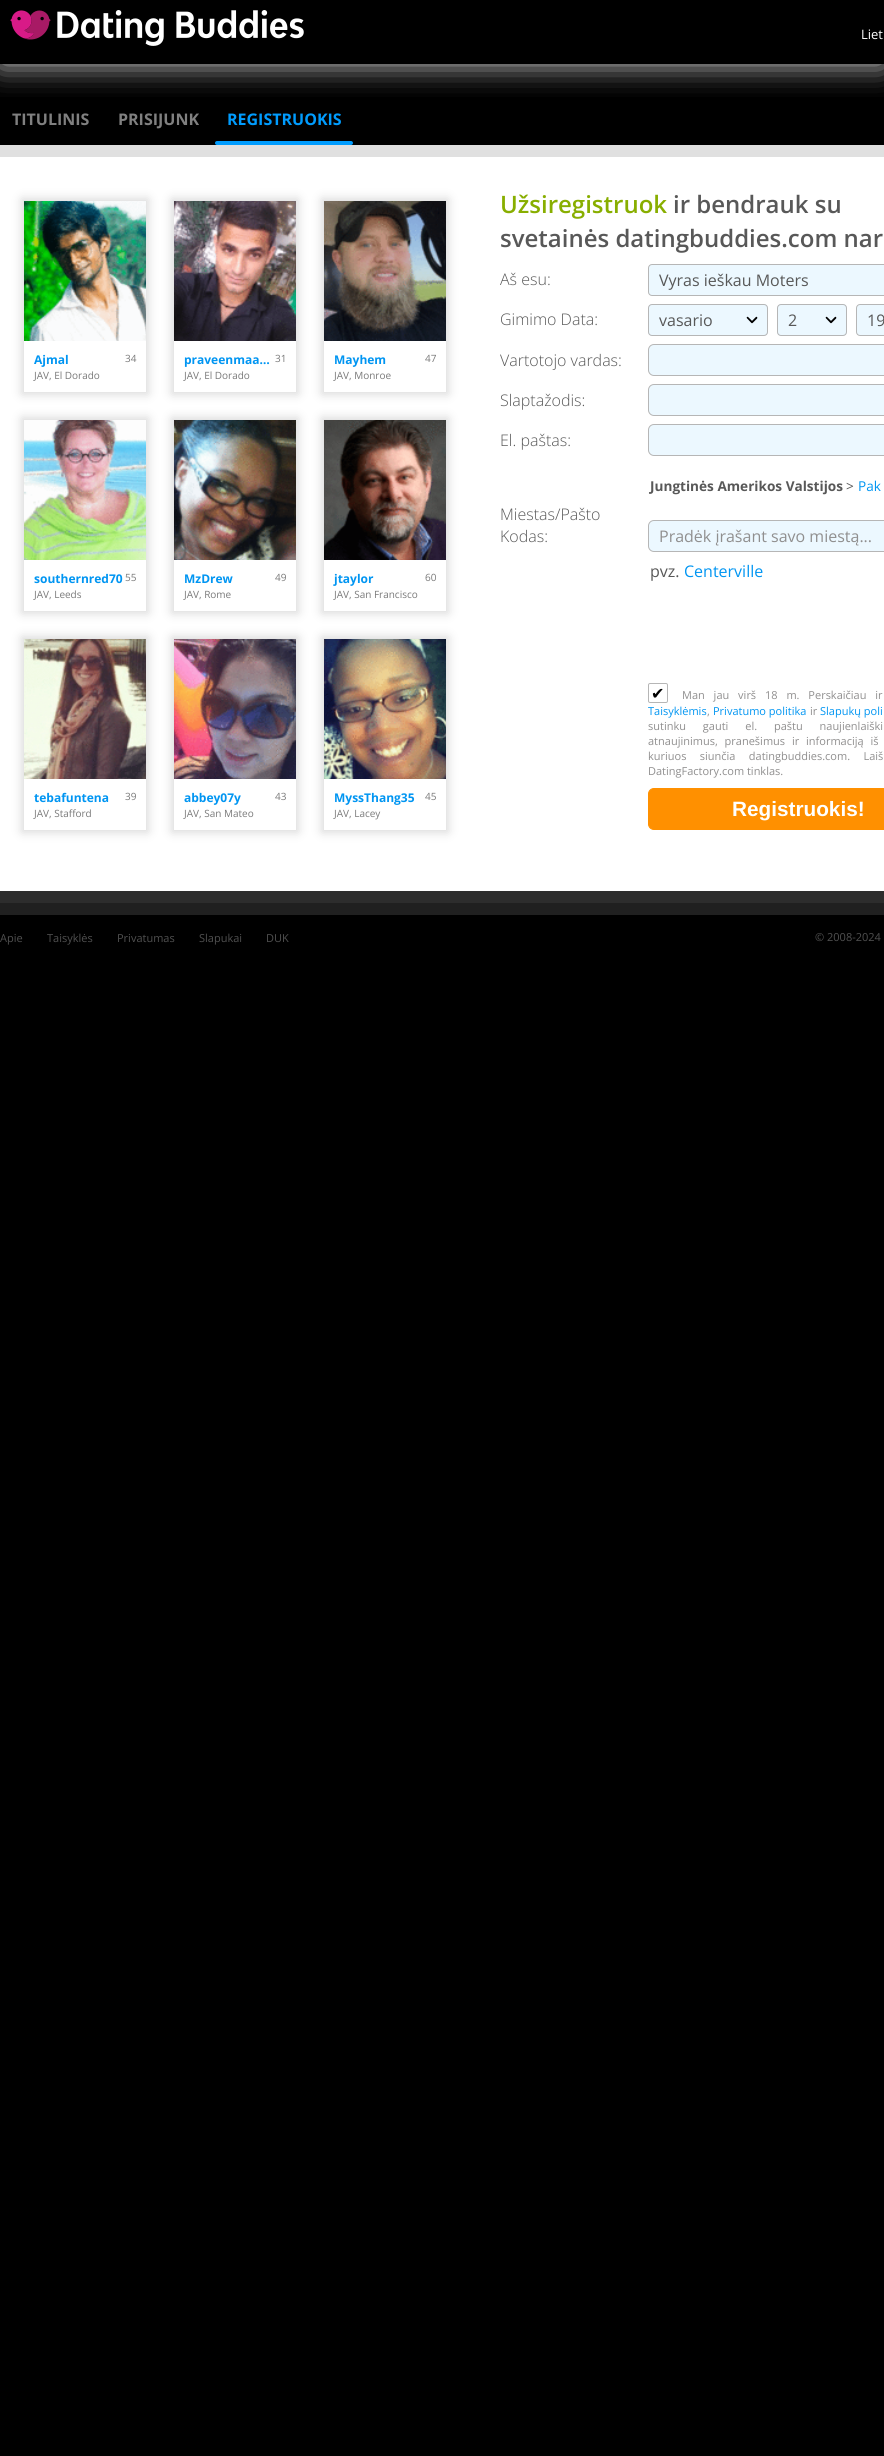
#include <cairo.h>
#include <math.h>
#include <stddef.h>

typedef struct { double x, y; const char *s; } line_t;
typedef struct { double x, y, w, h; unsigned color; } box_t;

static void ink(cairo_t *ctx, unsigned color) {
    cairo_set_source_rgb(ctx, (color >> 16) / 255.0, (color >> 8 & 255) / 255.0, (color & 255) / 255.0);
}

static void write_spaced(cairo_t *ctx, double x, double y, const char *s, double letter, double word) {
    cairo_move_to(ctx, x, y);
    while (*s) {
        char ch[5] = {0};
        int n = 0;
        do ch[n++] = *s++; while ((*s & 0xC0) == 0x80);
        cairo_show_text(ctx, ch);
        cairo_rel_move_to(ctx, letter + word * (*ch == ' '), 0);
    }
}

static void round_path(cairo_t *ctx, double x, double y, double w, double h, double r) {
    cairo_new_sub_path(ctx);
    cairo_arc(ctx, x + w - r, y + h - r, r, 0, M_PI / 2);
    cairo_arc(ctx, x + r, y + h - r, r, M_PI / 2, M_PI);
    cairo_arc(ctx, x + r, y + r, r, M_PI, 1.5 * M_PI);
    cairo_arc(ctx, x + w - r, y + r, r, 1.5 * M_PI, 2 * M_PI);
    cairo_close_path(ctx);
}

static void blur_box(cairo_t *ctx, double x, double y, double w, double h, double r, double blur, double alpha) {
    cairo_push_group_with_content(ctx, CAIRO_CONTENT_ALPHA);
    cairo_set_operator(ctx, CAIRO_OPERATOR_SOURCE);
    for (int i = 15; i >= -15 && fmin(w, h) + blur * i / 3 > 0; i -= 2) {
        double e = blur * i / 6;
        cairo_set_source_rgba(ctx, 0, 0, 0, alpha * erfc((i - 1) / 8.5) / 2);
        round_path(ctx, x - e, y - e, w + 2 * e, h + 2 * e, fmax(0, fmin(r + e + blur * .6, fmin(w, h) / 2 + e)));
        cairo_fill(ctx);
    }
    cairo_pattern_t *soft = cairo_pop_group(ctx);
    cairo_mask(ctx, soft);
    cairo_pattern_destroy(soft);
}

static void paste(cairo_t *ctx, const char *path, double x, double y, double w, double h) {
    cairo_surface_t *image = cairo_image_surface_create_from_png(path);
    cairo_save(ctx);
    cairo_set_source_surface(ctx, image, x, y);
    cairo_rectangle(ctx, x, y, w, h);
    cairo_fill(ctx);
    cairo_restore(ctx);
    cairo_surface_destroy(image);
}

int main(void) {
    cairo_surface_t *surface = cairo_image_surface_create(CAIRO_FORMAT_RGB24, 884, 2456);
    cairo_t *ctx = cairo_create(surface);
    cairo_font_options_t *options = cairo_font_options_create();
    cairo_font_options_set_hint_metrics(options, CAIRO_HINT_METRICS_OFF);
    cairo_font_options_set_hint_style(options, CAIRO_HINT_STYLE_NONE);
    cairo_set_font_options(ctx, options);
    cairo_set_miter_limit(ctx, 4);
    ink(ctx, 0x000000);
    cairo_paint(ctx);
    cairo_save(ctx);
    cairo_rectangle(ctx, 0, 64, 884, 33);
    cairo_clip(ctx);
    ink(ctx, 0xD7D7D7);
    blur_box(ctx, 0, 0, 884, 64, 0, 16, 1);
    cairo_restore(ctx);
    paste(ctx, "media/1.png", 10, 10, 294, 36);
    cairo_select_font_face(ctx, "Open Sans", CAIRO_FONT_SLANT_NORMAL, CAIRO_FONT_WEIGHT_NORMAL);
    cairo_set_font_size(ctx, 13);
    ink(ctx, 0xFFFFFF);
    cairo_move_to(ctx, 861, 39);
    cairo_show_text(ctx, "Liet");
    cairo_select_font_face(ctx, "Open Sans", CAIRO_FONT_SLANT_NORMAL, CAIRO_FONT_WEIGHT_BOLD);
    cairo_set_font_size(ctx, 16);
    ink(ctx, 0x808080);
    cairo_move_to(ctx, 12, 125);
    cairo_show_text(ctx, "TITULINIS");
    cairo_move_to(ctx, 118, 125);
    cairo_show_text(ctx, "PRISIJUNK");
    ink(ctx, 0x009CFE);
    cairo_move_to(ctx, 227, 125);
    cairo_show_text(ctx, "REGISTRUOKIS");
    round_path(ctx, 215, 141, 138, 4, 2);
    cairo_fill(ctx);
    {
        static const box_t items[] = {
            {0, 157, 884, 734, 0xFFFFFF},
            {0, 145, 884, 12, 0xE0E0E0},
            {0, 891, 884, 12, 0x2D2D2D},
        };
        for (size_t i = 0; i < sizeof items / sizeof *items; i++) {
            ink(ctx, items[i].color);
            cairo_rectangle(ctx, items[i].x, items[i].y, items[i].w, items[i].h);
            cairo_fill(ctx);
        }
    }
    cairo_save(ctx);
    cairo_set_fill_rule(ctx, CAIRO_FILL_RULE_EVEN_ODD);
    cairo_new_path(ctx);
    cairo_move_to(ctx, 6, 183);
    cairo_line_to(ctx, 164, 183);
    cairo_line_to(ctx, 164, 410);
    cairo_line_to(ctx, 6, 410);
    cairo_close_path(ctx);
    cairo_move_to(ctx, 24, 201);
    cairo_line_to(ctx, 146, 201);
    cairo_line_to(ctx, 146, 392);
    cairo_line_to(ctx, 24, 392);
    cairo_close_path(ctx);
    cairo_clip(ctx);
    ink(ctx, 0xD7D7D7);
    blur_box(ctx, 22, 199, 126, 195, 0, 5, 1);
    cairo_restore(ctx);
    paste(ctx, "media/2.png", 24, 201, 122, 140);
    cairo_set_font_size(ctx, 12);
    ink(ctx, 0x0095F2);
    cairo_move_to(ctx, 34, 364);
    cairo_show_text(ctx, "Ajmal");
    cairo_select_font_face(ctx, "Open Sans", CAIRO_FONT_SLANT_NORMAL, CAIRO_FONT_WEIGHT_NORMAL);
    cairo_set_font_size(ctx, 10);
    ink(ctx, 0x797979);
    cairo_move_to(ctx, 125, 362);
    cairo_show_text(ctx, "34");
    cairo_move_to(ctx, 34, 379);
    cairo_show_text(ctx, "JAV, El Dorado");
    cairo_save(ctx);
    cairo_set_fill_rule(ctx, CAIRO_FILL_RULE_EVEN_ODD);
    cairo_new_path(ctx);
    cairo_move_to(ctx, 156, 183);
    cairo_line_to(ctx, 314, 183);
    cairo_line_to(ctx, 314, 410);
    cairo_line_to(ctx, 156, 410);
    cairo_close_path(ctx);
    cairo_move_to(ctx, 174, 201);
    cairo_line_to(ctx, 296, 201);
    cairo_line_to(ctx, 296, 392);
    cairo_line_to(ctx, 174, 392);
    cairo_close_path(ctx);
    cairo_clip(ctx);
    ink(ctx, 0xD7D7D7);
    blur_box(ctx, 172, 199, 126, 195, 0, 5, 1);
    cairo_restore(ctx);
    paste(ctx, "media/3.png", 174, 201, 122, 140);
    cairo_select_font_face(ctx, "Open Sans", CAIRO_FONT_SLANT_NORMAL, CAIRO_FONT_WEIGHT_BOLD);
    cairo_set_font_size(ctx, 12);
    ink(ctx, 0x0095F2);
    cairo_move_to(ctx, 184, 364);
    cairo_show_text(ctx, "praveenmaa…");
    cairo_select_font_face(ctx, "Open Sans", CAIRO_FONT_SLANT_NORMAL, CAIRO_FONT_WEIGHT_NORMAL);
    cairo_set_font_size(ctx, 10);
    ink(ctx, 0x797979);
    cairo_move_to(ctx, 275, 362);
    cairo_show_text(ctx, "31");
    cairo_move_to(ctx, 184, 379);
    cairo_show_text(ctx, "JAV, El Dorado");
    cairo_save(ctx);
    cairo_set_fill_rule(ctx, CAIRO_FILL_RULE_EVEN_ODD);
    cairo_new_path(ctx);
    cairo_move_to(ctx, 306, 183);
    cairo_line_to(ctx, 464, 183);
    cairo_line_to(ctx, 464, 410);
    cairo_line_to(ctx, 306, 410);
    cairo_close_path(ctx);
    cairo_move_to(ctx, 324, 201);
    cairo_line_to(ctx, 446, 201);
    cairo_line_to(ctx, 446, 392);
    cairo_line_to(ctx, 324, 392);
    cairo_close_path(ctx);
    cairo_clip(ctx);
    ink(ctx, 0xD7D7D7);
    blur_box(ctx, 322, 199, 126, 195, 0, 5, 1);
    cairo_restore(ctx);
    paste(ctx, "media/4.png", 324, 201, 122, 140);
    cairo_select_font_face(ctx, "Open Sans", CAIRO_FONT_SLANT_NORMAL, CAIRO_FONT_WEIGHT_BOLD);
    cairo_set_font_size(ctx, 12);
    ink(ctx, 0x0095F2);
    cairo_move_to(ctx, 334, 364);
    cairo_show_text(ctx, "Mayhem");
    cairo_select_font_face(ctx, "Open Sans", CAIRO_FONT_SLANT_NORMAL, CAIRO_FONT_WEIGHT_NORMAL);
    cairo_set_font_size(ctx, 10);
    ink(ctx, 0x797979);
    cairo_move_to(ctx, 425, 362);
    cairo_show_text(ctx, "47");
    cairo_move_to(ctx, 334, 379);
    cairo_show_text(ctx, "JAV, Monroe");
    cairo_save(ctx);
    cairo_set_fill_rule(ctx, CAIRO_FILL_RULE_EVEN_ODD);
    cairo_new_path(ctx);
    cairo_move_to(ctx, 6, 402);
    cairo_line_to(ctx, 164, 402);
    cairo_line_to(ctx, 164, 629);
    cairo_line_to(ctx, 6, 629);
    cairo_close_path(ctx);
    cairo_move_to(ctx, 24, 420);
    cairo_line_to(ctx, 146, 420);
    cairo_line_to(ctx, 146, 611);
    cairo_line_to(ctx, 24, 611);
    cairo_close_path(ctx);
    cairo_clip(ctx);
    ink(ctx, 0xD7D7D7);
    blur_box(ctx, 22, 418, 126, 195, 0, 5, 1);
    cairo_restore(ctx);
    paste(ctx, "media/5.png", 24, 420, 122, 140);
    cairo_select_font_face(ctx, "Open Sans", CAIRO_FONT_SLANT_NORMAL, CAIRO_FONT_WEIGHT_BOLD);
    cairo_set_font_size(ctx, 12);
    ink(ctx, 0x0095F2);
    cairo_move_to(ctx, 34, 583);
    cairo_show_text(ctx, "southernred70");
    cairo_select_font_face(ctx, "Open Sans", CAIRO_FONT_SLANT_NORMAL, CAIRO_FONT_WEIGHT_NORMAL);
    cairo_set_font_size(ctx, 10);
    ink(ctx, 0x797979);
    cairo_move_to(ctx, 125, 581);
    cairo_show_text(ctx, "55");
    cairo_move_to(ctx, 34, 598);
    cairo_show_text(ctx, "JAV, Leeds");
    cairo_save(ctx);
    cairo_set_fill_rule(ctx, CAIRO_FILL_RULE_EVEN_ODD);
    cairo_new_path(ctx);
    cairo_move_to(ctx, 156, 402);
    cairo_line_to(ctx, 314, 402);
    cairo_line_to(ctx, 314, 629);
    cairo_line_to(ctx, 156, 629);
    cairo_close_path(ctx);
    cairo_move_to(ctx, 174, 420);
    cairo_line_to(ctx, 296, 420);
    cairo_line_to(ctx, 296, 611);
    cairo_line_to(ctx, 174, 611);
    cairo_close_path(ctx);
    cairo_clip(ctx);
    ink(ctx, 0xD7D7D7);
    blur_box(ctx, 172, 418, 126, 195, 0, 5, 1);
    cairo_restore(ctx);
    paste(ctx, "media/6.png", 174, 420, 122, 140);
    cairo_select_font_face(ctx, "Open Sans", CAIRO_FONT_SLANT_NORMAL, CAIRO_FONT_WEIGHT_BOLD);
    cairo_set_font_size(ctx, 12);
    ink(ctx, 0x0095F2);
    cairo_move_to(ctx, 184, 583);
    cairo_show_text(ctx, "MzDrew");
    cairo_select_font_face(ctx, "Open Sans", CAIRO_FONT_SLANT_NORMAL, CAIRO_FONT_WEIGHT_NORMAL);
    cairo_set_font_size(ctx, 10);
    ink(ctx, 0x797979);
    cairo_move_to(ctx, 275, 581);
    cairo_show_text(ctx, "49");
    cairo_move_to(ctx, 184, 598);
    cairo_show_text(ctx, "JAV, Rome");
    cairo_save(ctx);
    cairo_set_fill_rule(ctx, CAIRO_FILL_RULE_EVEN_ODD);
    cairo_new_path(ctx);
    cairo_move_to(ctx, 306, 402);
    cairo_line_to(ctx, 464, 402);
    cairo_line_to(ctx, 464, 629);
    cairo_line_to(ctx, 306, 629);
    cairo_close_path(ctx);
    cairo_move_to(ctx, 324, 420);
    cairo_line_to(ctx, 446, 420);
    cairo_line_to(ctx, 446, 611);
    cairo_line_to(ctx, 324, 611);
    cairo_close_path(ctx);
    cairo_clip(ctx);
    ink(ctx, 0xD7D7D7);
    blur_box(ctx, 322, 418, 126, 195, 0, 5, 1);
    cairo_restore(ctx);
    paste(ctx, "media/7.png", 324, 420, 122, 140);
    cairo_select_font_face(ctx, "Open Sans", CAIRO_FONT_SLANT_NORMAL, CAIRO_FONT_WEIGHT_BOLD);
    cairo_set_font_size(ctx, 12);
    ink(ctx, 0x0095F2);
    cairo_move_to(ctx, 334, 583);
    cairo_show_text(ctx, "jtaylor");
    cairo_select_font_face(ctx, "Open Sans", CAIRO_FONT_SLANT_NORMAL, CAIRO_FONT_WEIGHT_NORMAL);
    cairo_set_font_size(ctx, 10);
    ink(ctx, 0x797979);
    cairo_move_to(ctx, 425, 581);
    cairo_show_text(ctx, "60");
    cairo_move_to(ctx, 334, 598);
    cairo_show_text(ctx, "JAV, San Francisco");
    cairo_save(ctx);
    cairo_set_fill_rule(ctx, CAIRO_FILL_RULE_EVEN_ODD);
    cairo_new_path(ctx);
    cairo_move_to(ctx, 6, 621);
    cairo_line_to(ctx, 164, 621);
    cairo_line_to(ctx, 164, 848);
    cairo_line_to(ctx, 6, 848);
    cairo_close_path(ctx);
    cairo_move_to(ctx, 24, 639);
    cairo_line_to(ctx, 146, 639);
    cairo_line_to(ctx, 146, 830);
    cairo_line_to(ctx, 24, 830);
    cairo_close_path(ctx);
    cairo_clip(ctx);
    ink(ctx, 0xD7D7D7);
    blur_box(ctx, 22, 637, 126, 195, 0, 5, 1);
    cairo_restore(ctx);
    paste(ctx, "media/8.png", 24, 639, 122, 140);
    cairo_select_font_face(ctx, "Open Sans", CAIRO_FONT_SLANT_NORMAL, CAIRO_FONT_WEIGHT_BOLD);
    cairo_set_font_size(ctx, 12);
    ink(ctx, 0x0095F2);
    cairo_move_to(ctx, 34, 802);
    cairo_show_text(ctx, "tebafuntena");
    cairo_select_font_face(ctx, "Open Sans", CAIRO_FONT_SLANT_NORMAL, CAIRO_FONT_WEIGHT_NORMAL);
    cairo_set_font_size(ctx, 10);
    ink(ctx, 0x797979);
    cairo_move_to(ctx, 125, 800);
    cairo_show_text(ctx, "39");
    cairo_move_to(ctx, 34, 817);
    cairo_show_text(ctx, "JAV, Stafford");
    cairo_save(ctx);
    cairo_set_fill_rule(ctx, CAIRO_FILL_RULE_EVEN_ODD);
    cairo_new_path(ctx);
    cairo_move_to(ctx, 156, 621);
    cairo_line_to(ctx, 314, 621);
    cairo_line_to(ctx, 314, 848);
    cairo_line_to(ctx, 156, 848);
    cairo_close_path(ctx);
    cairo_move_to(ctx, 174, 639);
    cairo_line_to(ctx, 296, 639);
    cairo_line_to(ctx, 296, 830);
    cairo_line_to(ctx, 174, 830);
    cairo_close_path(ctx);
    cairo_clip(ctx);
    ink(ctx, 0xD7D7D7);
    blur_box(ctx, 172, 637, 126, 195, 0, 5, 1);
    cairo_restore(ctx);
    paste(ctx, "media/9.png", 174, 639, 122, 140);
    cairo_select_font_face(ctx, "Open Sans", CAIRO_FONT_SLANT_NORMAL, CAIRO_FONT_WEIGHT_BOLD);
    cairo_set_font_size(ctx, 12);
    ink(ctx, 0x0095F2);
    cairo_move_to(ctx, 184, 802);
    cairo_show_text(ctx, "abbey07y");
    cairo_select_font_face(ctx, "Open Sans", CAIRO_FONT_SLANT_NORMAL, CAIRO_FONT_WEIGHT_NORMAL);
    cairo_set_font_size(ctx, 10);
    ink(ctx, 0x797979);
    cairo_move_to(ctx, 275, 800);
    cairo_show_text(ctx, "43");
    cairo_move_to(ctx, 184, 817);
    cairo_show_text(ctx, "JAV, San Mateo");
    cairo_save(ctx);
    cairo_set_fill_rule(ctx, CAIRO_FILL_RULE_EVEN_ODD);
    cairo_new_path(ctx);
    cairo_move_to(ctx, 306, 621);
    cairo_line_to(ctx, 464, 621);
    cairo_line_to(ctx, 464, 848);
    cairo_line_to(ctx, 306, 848);
    cairo_close_path(ctx);
    cairo_move_to(ctx, 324, 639);
    cairo_line_to(ctx, 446, 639);
    cairo_line_to(ctx, 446, 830);
    cairo_line_to(ctx, 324, 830);
    cairo_close_path(ctx);
    cairo_clip(ctx);
    ink(ctx, 0xD7D7D7);
    blur_box(ctx, 322, 637, 126, 195, 0, 5, 1);
    cairo_restore(ctx);
    paste(ctx, "media/10.png", 324, 639, 122, 140);
    cairo_select_font_face(ctx, "Open Sans", CAIRO_FONT_SLANT_NORMAL, CAIRO_FONT_WEIGHT_BOLD);
    cairo_set_font_size(ctx, 12);
    ink(ctx, 0x0095F2);
    cairo_move_to(ctx, 334, 802);
    cairo_show_text(ctx, "MyssThang35");
    cairo_select_font_face(ctx, "Open Sans", CAIRO_FONT_SLANT_NORMAL, CAIRO_FONT_WEIGHT_NORMAL);
    cairo_set_font_size(ctx, 10);
    ink(ctx, 0x797979);
    cairo_move_to(ctx, 425, 800);
    cairo_show_text(ctx, "45");
    cairo_move_to(ctx, 334, 817);
    cairo_show_text(ctx, "JAV, Lacey");
    cairo_select_font_face(ctx, "Open Sans SemiBold", CAIRO_FONT_SLANT_NORMAL, CAIRO_FONT_WEIGHT_NORMAL);
    cairo_set_font_size(ctx, 24);
    ink(ctx, 0x88AE00);
    cairo_move_to(ctx, 500, 213);
    cairo_show_text(ctx, "Užsiregistruok");
    ink(ctx, 0x585858);
    cairo_move_to(ctx, 673, 213);
    cairo_show_text(ctx, "ir bendrauk su");
    cairo_move_to(ctx, 500, 247);
    cairo_show_text(ctx, "svetainės datingbuddies.com nar");
    cairo_select_font_face(ctx, "Open Sans Light", CAIRO_FONT_SLANT_NORMAL, CAIRO_FONT_WEIGHT_NORMAL);
    cairo_set_font_size(ctx, 16);
    cairo_move_to(ctx, 500, 285);
    cairo_show_text(ctx, "Aš esu:");
    ink(ctx, 0xECF8FF);
    round_path(ctx, 648.5, 264.5, 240, 31, 3.5);
    cairo_fill_preserve(ctx);
    ink(ctx, 0xB6B6B6);
    cairo_set_line_width(ctx, 1);
    cairo_stroke(ctx);
    cairo_select_font_face(ctx, "Open Sans", CAIRO_FONT_SLANT_NORMAL, CAIRO_FONT_WEIGHT_NORMAL);
    ink(ctx, 0x585858);
    cairo_move_to(ctx, 659, 286);
    cairo_show_text(ctx, "Vyras ieškau Moters");
    cairo_select_font_face(ctx, "Open Sans Light", CAIRO_FONT_SLANT_NORMAL, CAIRO_FONT_WEIGHT_NORMAL);
    cairo_move_to(ctx, 500, 325);
    cairo_show_text(ctx, "Gimimo Data:");
    ink(ctx, 0xECF8FF);
    round_path(ctx, 648, 304, 120, 32, 4);
    cairo_fill(ctx);
    paste(ctx, "media/11.png", 746, 316, 12, 8);
    round_path(ctx, 648.5, 304.5, 119, 31, 3.5);
    ink(ctx, 0xB6B6B6);
    cairo_stroke(ctx);
    cairo_select_font_face(ctx, "Open Sans", CAIRO_FONT_SLANT_NORMAL, CAIRO_FONT_WEIGHT_NORMAL);
    ink(ctx, 0x585858);
    cairo_move_to(ctx, 659, 326);
    cairo_show_text(ctx, "vasario");
    ink(ctx, 0xECF8FF);
    round_path(ctx, 777, 304, 70, 32, 4);
    cairo_fill(ctx);
    paste(ctx, "media/11.png", 825, 316, 12, 8);
    round_path(ctx, 777.5, 304.5, 69, 31, 3.5);
    ink(ctx, 0xB6B6B6);
    cairo_stroke(ctx);
    ink(ctx, 0x585858);
    cairo_move_to(ctx, 788, 326);
    cairo_show_text(ctx, "2");
    ink(ctx, 0xECF8FF);
    round_path(ctx, 856.5, 304.5, 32, 31, 3.5);
    cairo_fill_preserve(ctx);
    ink(ctx, 0xB6B6B6);
    cairo_stroke(ctx);
    ink(ctx, 0x585858);
    cairo_move_to(ctx, 867, 326);
    cairo_show_text(ctx, "19");
    cairo_select_font_face(ctx, "Open Sans Light", CAIRO_FONT_SLANT_NORMAL, CAIRO_FONT_WEIGHT_NORMAL);
    cairo_move_to(ctx, 500, 366);
    cairo_show_text(ctx, "Vartotojo vardas:");
    ink(ctx, 0xECF8FF);
    round_path(ctx, 648.5, 344.5, 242, 31, 5.5);
    cairo_fill_preserve(ctx);
    ink(ctx, 0xB6B6B6);
    cairo_stroke(ctx);
    ink(ctx, 0x585858);
    cairo_move_to(ctx, 500, 406);
    cairo_show_text(ctx, "Slaptažodis:");
    ink(ctx, 0xECF8FF);
    round_path(ctx, 648.5, 384.5, 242, 31, 5.5);
    cairo_fill_preserve(ctx);
    ink(ctx, 0xB6B6B6);
    cairo_stroke(ctx);
    ink(ctx, 0x585858);
    cairo_move_to(ctx, 500, 446);
    cairo_show_text(ctx, "El. paštas:");
    ink(ctx, 0xECF8FF);
    round_path(ctx, 648.5, 424.5, 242, 31, 5.5);
    cairo_fill_preserve(ctx);
    ink(ctx, 0xB6B6B6);
    cairo_stroke(ctx);
    cairo_select_font_face(ctx, "Open Sans", CAIRO_FONT_SLANT_NORMAL, CAIRO_FONT_WEIGHT_BOLD);
    cairo_set_font_size(ctx, 13.6);
    ink(ctx, 0x585858);
    cairo_move_to(ctx, 650, 491);
    cairo_show_text(ctx, "Jungtinės Amerikos Valstijos");
    cairo_select_font_face(ctx, "Open Sans", CAIRO_FONT_SLANT_NORMAL, CAIRO_FONT_WEIGHT_NORMAL);
    cairo_move_to(ctx, 846, 491);
    cairo_show_text(ctx, ">");
    ink(ctx, 0x0095F2);
    cairo_move_to(ctx, 858, 491);
    cairo_show_text(ctx, "Pak");
    cairo_select_font_face(ctx, "Open Sans Light", CAIRO_FONT_SLANT_NORMAL, CAIRO_FONT_WEIGHT_NORMAL);
    cairo_set_font_size(ctx, 16);
    ink(ctx, 0x585858);
    cairo_move_to(ctx, 500, 520);
    cairo_show_text(ctx, "Miestas/Pašto");
    cairo_move_to(ctx, 500, 542);
    cairo_show_text(ctx, "Kodas:");
    ink(ctx, 0xECF8FF);
    round_path(ctx, 648.5, 520.5, 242, 31, 5.5);
    cairo_fill_preserve(ctx);
    ink(ctx, 0xB6B6B6);
    cairo_stroke(ctx);
    cairo_select_font_face(ctx, "Open Sans", CAIRO_FONT_SLANT_NORMAL, CAIRO_FONT_WEIGHT_NORMAL);
    ink(ctx, 0x908F8F);
    cairo_move_to(ctx, 659, 542);
    cairo_show_text(ctx, "Pradėk įrašant savo miestą...");
    ink(ctx, 0x585858);
    cairo_move_to(ctx, 650, 577);
    cairo_show_text(ctx, "pvz.");
    ink(ctx, 0x0095F2);
    cairo_move_to(ctx, 684, 577);
    cairo_show_text(ctx, "Centerville");
    round_path(ctx, 648.5, 683.5, 19, 19, 1.5);
    ink(ctx, 0xB6B6B6);
    cairo_stroke(ctx);
    cairo_select_font_face(ctx, "DejaVu Sans", CAIRO_FONT_SLANT_NORMAL, CAIRO_FONT_WEIGHT_NORMAL);
    ink(ctx, 0x000000);
    cairo_move_to(ctx, 651, 699);
    cairo_show_text(ctx, "✔");
    cairo_select_font_face(ctx, "Open Sans", CAIRO_FONT_SLANT_NORMAL, CAIRO_FONT_WEIGHT_NORMAL);
    cairo_set_font_size(ctx, 11);
    ink(ctx, 0x908F8F);
    write_spaced(ctx, 682, 699, "Man jau virš 18 m. Perskaičiau ir", 0, 6);
    ink(ctx, 0x0095F2);
    cairo_move_to(ctx, 648, 715);
    cairo_show_text(ctx, "Taisyklėmis");
    ink(ctx, 0x908F8F);
    cairo_move_to(ctx, 707, 715);
    cairo_show_text(ctx, ",");
    ink(ctx, 0x0095F2);
    cairo_move_to(ctx, 713, 715);
    cairo_show_text(ctx, "Privatumo politika");
    ink(ctx, 0x908F8F);
    cairo_move_to(ctx, 810, 715);
    cairo_show_text(ctx, "ir");
    ink(ctx, 0x0095F2);
    cairo_move_to(ctx, 820, 715);
    cairo_show_text(ctx, "Slapukų poli");
    ink(ctx, 0x908F8F);
    write_spaced(ctx, 648, 730, "sutinku gauti el. paštu naujienlaiški", 0, 14);
    write_spaced(ctx, 648, 745, "atnaujinimus, pranešimus ir informaciją iš", 0, 4);
    write_spaced(ctx, 648, 760, "kuriuos siunčia datingbuddies.com. Laiš", 0, 10.5);
    cairo_move_to(ctx, 648, 775);
    cairo_show_text(ctx, "DatingFactory.com tinklas.");
    ink(ctx, 0xFF9000);
    round_path(ctx, 648.5, 788.5, 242, 41, 5.5);
    cairo_fill_preserve(ctx);
    cairo_stroke(ctx);
    cairo_select_font_face(ctx, "Liberation Sans", CAIRO_FONT_SLANT_NORMAL, CAIRO_FONT_WEIGHT_BOLD);
    cairo_set_font_size(ctx, 20.75);
    ink(ctx, 0xFFFFFF);
    cairo_move_to(ctx, 732, 816);
    cairo_show_text(ctx, "Registruokis!");
    ink(ctx, 0x202020);
    cairo_rectangle(ctx, 0, 903, 884, 12);
    cairo_fill(ctx);
    cairo_select_font_face(ctx, "Open Sans", CAIRO_FONT_SLANT_NORMAL, CAIRO_FONT_WEIGHT_NORMAL);
    cairo_set_font_size(ctx, 11);
    ink(ctx, 0x505050);
    {
        static const line_t items[] = {
            {0, 942, "Apie"},
            {47, 942, "Taisyklės"},
            {117, 942, "Privatumas"},
            {199, 942, "Slapukai"},
            {266, 942, "DUK"},
            {815, 941, "© 2008-2024"},
        };
        for (size_t i = 0; i < sizeof items / sizeof *items; i++) {
            cairo_move_to(ctx, items[i].x, items[i].y);
            cairo_show_text(ctx, items[i].s);
        }
    }
    cairo_surface_write_to_png(surface, "image.png");
    cairo_font_options_destroy(options);
    cairo_destroy(ctx);
    cairo_surface_destroy(surface);
    return 0;
}
